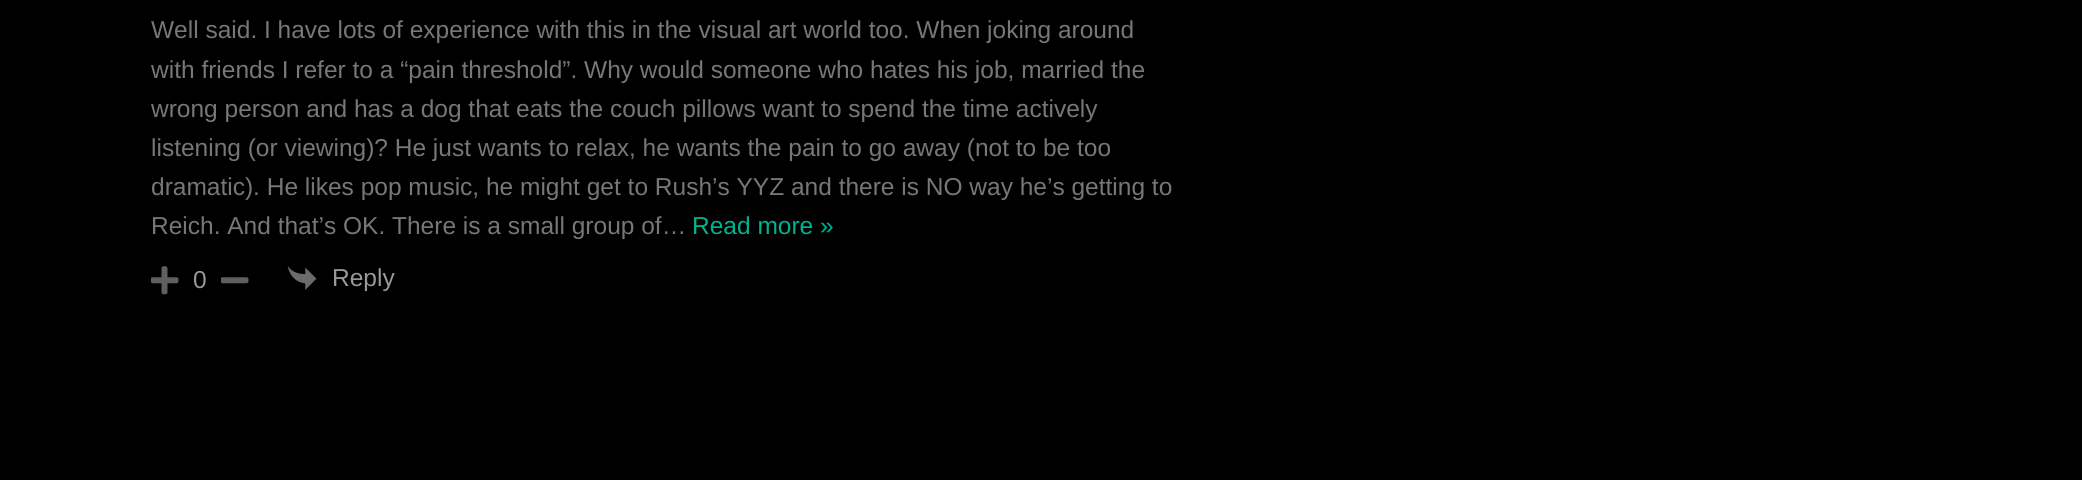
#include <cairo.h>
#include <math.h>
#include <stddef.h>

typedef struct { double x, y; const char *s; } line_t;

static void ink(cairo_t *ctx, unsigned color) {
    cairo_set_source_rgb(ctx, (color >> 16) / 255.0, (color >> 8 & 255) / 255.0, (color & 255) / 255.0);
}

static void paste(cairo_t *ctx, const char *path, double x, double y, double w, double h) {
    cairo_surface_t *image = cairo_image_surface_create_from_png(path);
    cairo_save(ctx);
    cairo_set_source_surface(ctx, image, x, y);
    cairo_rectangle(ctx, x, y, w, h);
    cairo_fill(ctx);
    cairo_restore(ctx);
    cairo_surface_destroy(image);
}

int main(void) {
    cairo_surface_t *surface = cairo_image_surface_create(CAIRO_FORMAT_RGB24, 2082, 480);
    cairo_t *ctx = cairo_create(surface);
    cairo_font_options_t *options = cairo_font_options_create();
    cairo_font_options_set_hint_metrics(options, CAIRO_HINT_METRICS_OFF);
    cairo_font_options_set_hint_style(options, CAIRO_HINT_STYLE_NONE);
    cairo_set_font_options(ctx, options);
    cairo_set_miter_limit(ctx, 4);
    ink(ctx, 0x000000);
    cairo_paint(ctx);
    cairo_select_font_face(ctx, "Liberation Sans", CAIRO_FONT_SLANT_NORMAL, CAIRO_FONT_WEIGHT_NORMAL);
    cairo_set_font_size(ctx, 24.5);
    ink(ctx, 0x777777);
    {
        static const line_t items[] = {
            {151, 38, "Well said. I have lots of experience with this in the visual art world too. When joking around"},
            {151, 78, "with friends I refer to a “pain threshold”. Why would someone who hates his job, married the"},
            {151, 117, "wrong person and has a dog that eats the couch pillows want to spend the time actively"},
            {151, 156, "listening (or viewing)? He just wants to relax, he wants the pain to go away (not to be too"},
            {151, 195, "dramatic). He likes pop music, he might get to Rush’s YYZ and there is NO way he’s getting to"},
            {151, 234, "Reich. And that’s OK. There is a small group of…"},
        };
        for (size_t i = 0; i < sizeof items / sizeof *items; i++) {
            cairo_move_to(ctx, items[i].x, items[i].y);
            cairo_show_text(ctx, items[i].s);
        }
    }
    ink(ctx, 0x00B38F);
    cairo_move_to(ctx, 692, 234);
    cairo_show_text(ctx, "Read more »");
    paste(ctx, "media/1.png", 151, 266, 28, 29);
    ink(ctx, 0x999999);
    cairo_move_to(ctx, 193, 288);
    cairo_show_text(ctx, "0");
    paste(ctx, "media/2.png", 221, 277, 28, 7);
    paste(ctx, "media/3.png", 287, 266, 30, 24);
    cairo_move_to(ctx, 332, 286);
    cairo_show_text(ctx, "Reply");
    cairo_surface_write_to_png(surface, "image.png");
    cairo_font_options_destroy(options);
    cairo_destroy(ctx);
    cairo_surface_destroy(surface);
    return 0;
}
